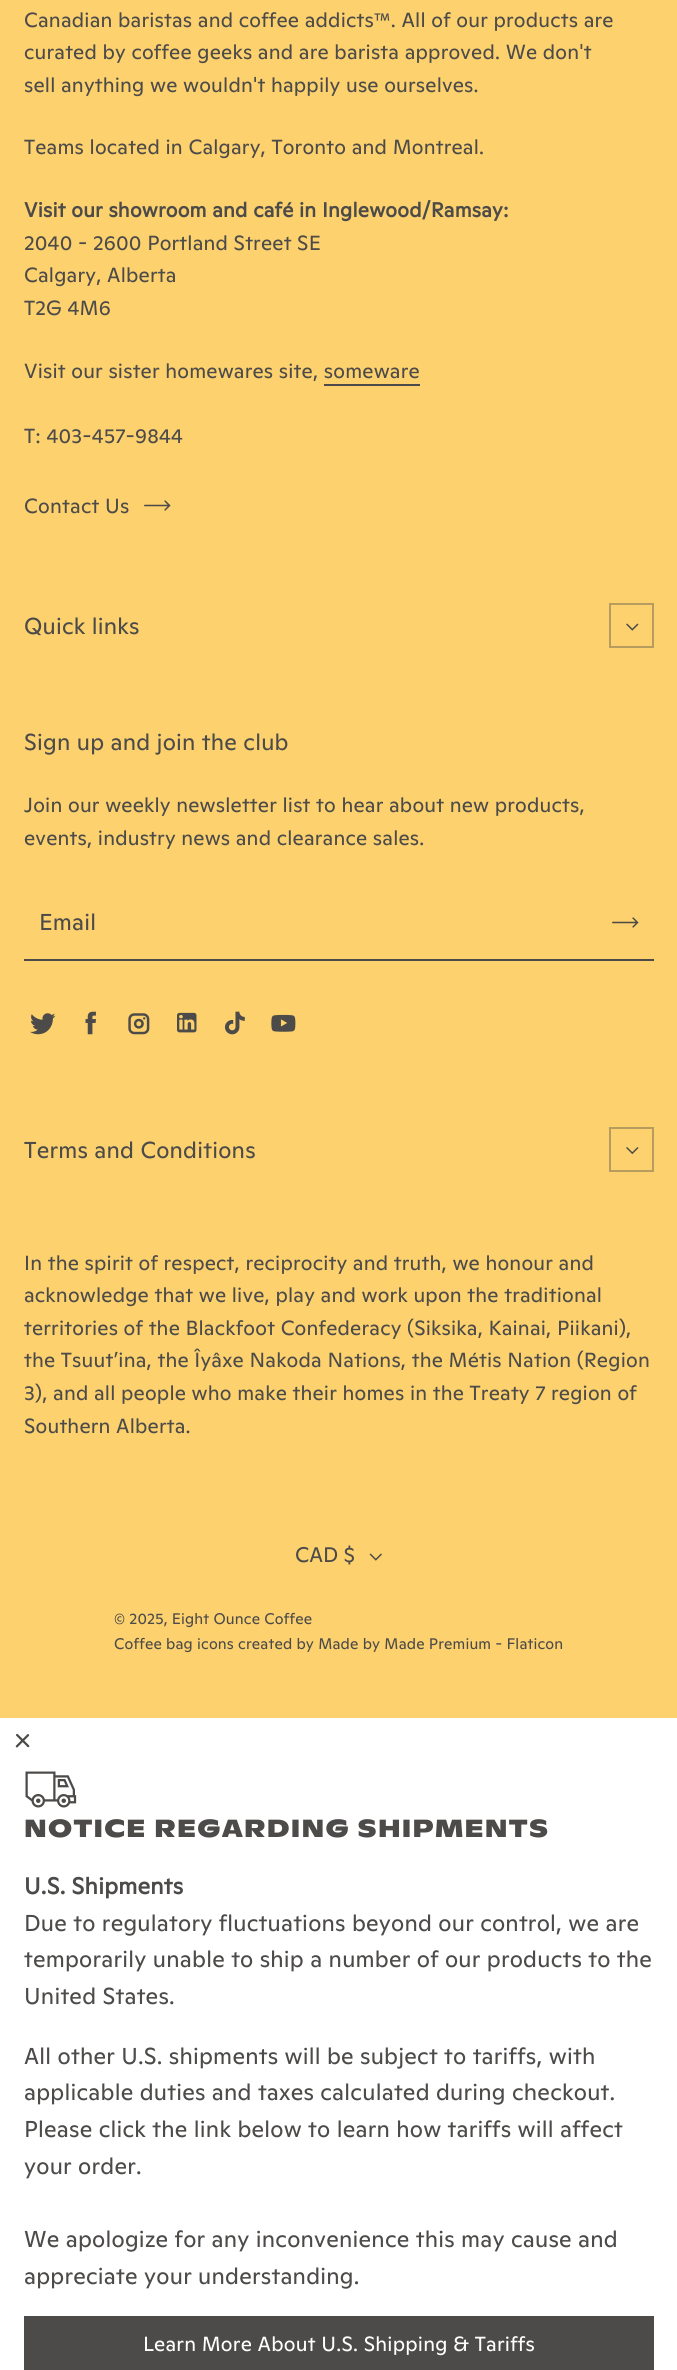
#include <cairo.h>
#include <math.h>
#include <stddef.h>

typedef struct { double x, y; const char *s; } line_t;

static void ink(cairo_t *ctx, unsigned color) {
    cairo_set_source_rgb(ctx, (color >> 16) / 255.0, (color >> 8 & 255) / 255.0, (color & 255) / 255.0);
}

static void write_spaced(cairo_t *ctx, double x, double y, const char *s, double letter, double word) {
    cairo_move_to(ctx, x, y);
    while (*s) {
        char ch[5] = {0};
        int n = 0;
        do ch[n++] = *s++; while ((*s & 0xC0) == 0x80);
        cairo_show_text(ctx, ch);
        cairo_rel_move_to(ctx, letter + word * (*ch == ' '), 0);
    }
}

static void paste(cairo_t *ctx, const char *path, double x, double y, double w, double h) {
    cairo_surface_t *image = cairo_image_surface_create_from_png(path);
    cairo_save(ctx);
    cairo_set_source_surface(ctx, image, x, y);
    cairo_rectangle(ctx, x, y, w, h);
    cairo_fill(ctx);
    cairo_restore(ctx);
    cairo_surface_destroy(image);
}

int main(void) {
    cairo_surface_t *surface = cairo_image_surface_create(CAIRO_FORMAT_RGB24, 677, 2370);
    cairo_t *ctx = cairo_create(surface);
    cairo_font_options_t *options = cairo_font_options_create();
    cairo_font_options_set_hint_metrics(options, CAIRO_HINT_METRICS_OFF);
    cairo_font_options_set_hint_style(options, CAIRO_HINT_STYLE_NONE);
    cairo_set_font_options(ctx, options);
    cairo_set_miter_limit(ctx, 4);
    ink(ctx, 0xFFFFFF);
    cairo_paint(ctx);
    ink(ctx, 0xFDD26E);
    cairo_rectangle(ctx, 0, 0, 677, 1718);
    cairo_fill(ctx);
    cairo_select_font_face(ctx, "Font", CAIRO_FONT_SLANT_NORMAL, CAIRO_FONT_WEIGHT_NORMAL);
    cairo_set_font_size(ctx, 20.4);
    ink(ctx, 0x4D4B49);
    {
        static const line_t items[] = {
            {24, 27, "Canadian baristas and coffee addicts™. All of our products are"},
            {24, 59, "curated by coffee geeks and are barista approved. We don't"},
            {24, 92, "sell anything we wouldn't happily use ourselves."},
            {24, 154, "Teams located in Calgary, Toronto and Montreal."},
        };
        for (size_t i = 0; i < sizeof items / sizeof *items; i++) {
            write_spaced(ctx, items[i].x, items[i].y, items[i].s, 0.2, 0);
        }
    }
    cairo_select_font_face(ctx, "Font", CAIRO_FONT_SLANT_NORMAL, CAIRO_FONT_WEIGHT_BOLD);
    write_spaced(ctx, 24, 217, "Visit our showroom and café in Inglewood/Ramsay:", 0.2, 0);
    cairo_select_font_face(ctx, "Font", CAIRO_FONT_SLANT_NORMAL, CAIRO_FONT_WEIGHT_NORMAL);
    {
        static const line_t items[] = {
            {24, 250, "2040 - 2600 Portland Street SE"},
            {24, 282, "Calgary, Alberta"},
            {24, 315, "T2G 4M6"},
            {24, 378, "Visit our sister homewares site, someware"},
        };
        for (size_t i = 0; i < sizeof items / sizeof *items; i++) {
            write_spaced(ctx, items[i].x, items[i].y, items[i].s, 0.2, 0);
        }
    }
    cairo_rectangle(ctx, 324, 384, 96, 2);
    cairo_fill(ctx);
    write_spaced(ctx, 24, 443, "T: 403-457-9844", 0.2, 0);
    write_spaced(ctx, 24, 513, "Contact Us", 0.23, 0);
    paste(ctx, "media/1.png", 144, 500, 27, 11);
    cairo_set_font_size(ctx, 22.95);
    write_spaced(ctx, 24, 634, "Quick links", 0.23, 0);
    cairo_rectangle(ctx, 610, 604, 43, 43);
    ink(ctx, 0xB79C5F);
    cairo_stroke(ctx);
    paste(ctx, "media/2.png", 626, 623, 13, 8);
    ink(ctx, 0x4D4B49);
    write_spaced(ctx, 24, 750, "Sign up and join the club", 0.23, 0);
    cairo_set_font_size(ctx, 20.4);
    write_spaced(ctx, 24, 812, "Join our weekly newsletter list to hear about new products,", 0.2, 0);
    write_spaced(ctx, 24, 845, "events, industry news and clearance sales.", 0.2, 0);
    cairo_set_font_size(ctx, 22.95);
    write_spaced(ctx, 39, 930, "Email", 0.23, 0);
    paste(ctx, "media/1.png", 612, 917, 27, 11);
    cairo_rectangle(ctx, 24, 959, 630, 2);
    cairo_fill(ctx);
    paste(ctx, "media/3.png", 30, 1013, 26, 22);
    paste(ctx, "media/4.png", 85, 1011, 11, 24);
    paste(ctx, "media/5.png", 128, 1013, 22, 22);
    paste(ctx, "media/6.png", 177, 1012, 20, 21);
    paste(ctx, "media/7.png", 224, 1011, 21, 24);
    paste(ctx, "media/8.png", 271, 1014, 25, 18);
    write_spaced(ctx, 24, 1158, "Terms and Conditions", 0.23, 0);
    cairo_rectangle(ctx, 610, 1128, 43, 43);
    ink(ctx, 0xB79C5F);
    cairo_stroke(ctx);
    paste(ctx, "media/9.png", 626, 1147, 13, 8);
    cairo_set_font_size(ctx, 20.4);
    ink(ctx, 0x4D4B49);
    {
        static const line_t items[] = {
            {24, 1270, "In the spirit of respect, reciprocity and truth, we honour and"},
            {24, 1302, "acknowledge that we live, play and work upon the traditional"},
            {24, 1335, "territories of the Blackfoot Confederacy (Siksika, Kainai, Piikani),"},
            {24, 1367, "the Tsuut’ina, the Îyâxe Nakoda Nations, the Métis Nation (Region"},
            {24, 1400, "3), and all people who make their homes in the Treaty 7 region of"},
            {24, 1433, "Southern Alberta."},
        };
        for (size_t i = 0; i < sizeof items / sizeof *items; i++) {
            write_spaced(ctx, items[i].x, items[i].y, items[i].s, 0.2, 0);
        }
    }
    cairo_set_font_size(ctx, 21);
    cairo_move_to(ctx, 295, 1562);
    cairo_show_text(ctx, "CAD $");
    paste(ctx, "media/10.png", 369, 1553, 13, 8);
    cairo_set_font_size(ctx, 15.3);
    write_spaced(ctx, 114, 1624, "© 2025, Eight Ounce Coffee", 0.15, 0);
    write_spaced(ctx, 114, 1649, "Coffee bag icons created by Made by Made Premium - Flaticon", 0.15, 0);
    paste(ctx, "media/11.png", 15, 1733, 15, 15);
    paste(ctx, "media/12.png", 25, 1771, 52, 37);
    cairo_select_font_face(ctx, "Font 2", CAIRO_FONT_SLANT_NORMAL, CAIRO_FONT_WEIGHT_BOLD);
    cairo_set_font_size(ctx, 24.75);
    write_spaced(ctx, 24, 1837, "NOTICE REGARDING SHIPMENTS", 1.25, 0);
    cairo_select_font_face(ctx, "Font", CAIRO_FONT_SLANT_NORMAL, CAIRO_FONT_WEIGHT_BOLD);
    cairo_set_font_size(ctx, 22.95);
    write_spaced(ctx, 24, 1894, "U.S. Shipments", 0.23, 0);
    cairo_select_font_face(ctx, "Font", CAIRO_FONT_SLANT_NORMAL, CAIRO_FONT_WEIGHT_NORMAL);
    {
        static const line_t items[] = {
            {24, 1931, "Due to regulatory fluctuations beyond our control, we are"},
            {24, 1967, "temporarily unable to ship a number of our products to the"},
            {24, 2004, "United States."},
            {24, 2064, "All other U.S. shipments will be subject to tariffs, with"},
            {24, 2100, "applicable duties and taxes calculated during checkout."},
            {24, 2137, "Please click the link below to learn how tariffs will affect"},
            {24, 2174, "your order."},
            {24, 2247, "We apologize for any inconvenience this may cause and"},
            {24, 2284, "appreciate your understanding."},
        };
        for (size_t i = 0; i < sizeof items / sizeof *items; i++) {
            write_spaced(ctx, items[i].x, items[i].y, items[i].s, 0.23, 0);
        }
    }
    cairo_rectangle(ctx, 24, 2316, 630, 54);
    cairo_fill(ctx);
    cairo_set_font_size(ctx, 20.4);
    ink(ctx, 0xFFFFFF);
    write_spaced(ctx, 143, 2351, "Learn More About U.S. Shipping & Tariffs", 0.23, 0);
    cairo_surface_write_to_png(surface, "image.png");
    cairo_font_options_destroy(options);
    cairo_destroy(ctx);
    cairo_surface_destroy(surface);
    return 0;
}
